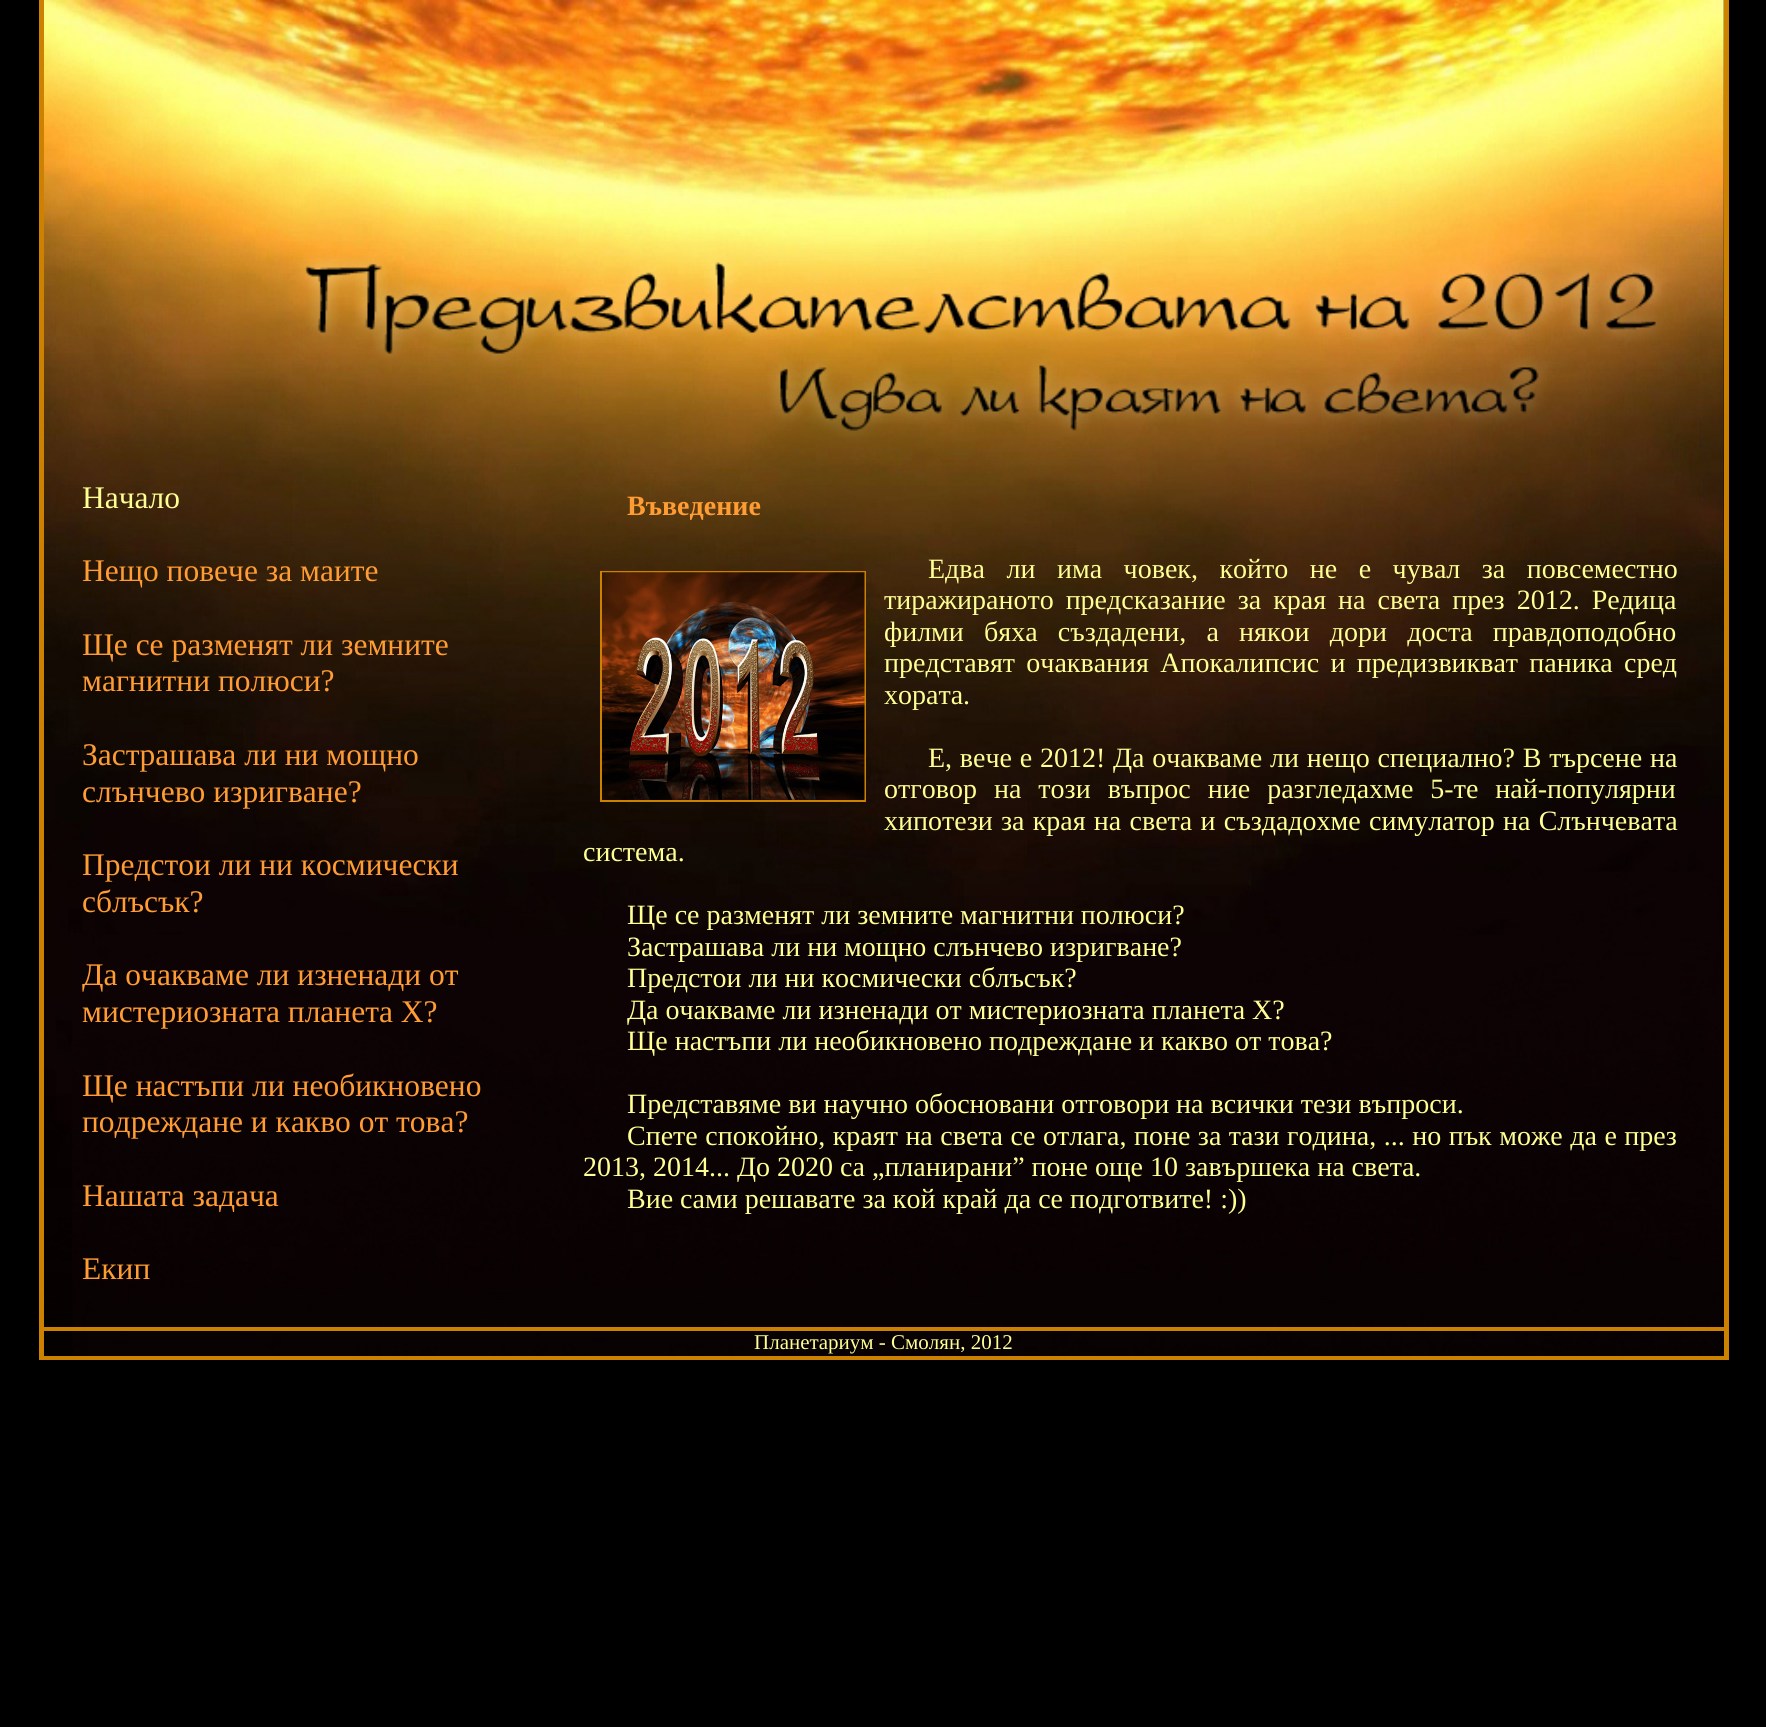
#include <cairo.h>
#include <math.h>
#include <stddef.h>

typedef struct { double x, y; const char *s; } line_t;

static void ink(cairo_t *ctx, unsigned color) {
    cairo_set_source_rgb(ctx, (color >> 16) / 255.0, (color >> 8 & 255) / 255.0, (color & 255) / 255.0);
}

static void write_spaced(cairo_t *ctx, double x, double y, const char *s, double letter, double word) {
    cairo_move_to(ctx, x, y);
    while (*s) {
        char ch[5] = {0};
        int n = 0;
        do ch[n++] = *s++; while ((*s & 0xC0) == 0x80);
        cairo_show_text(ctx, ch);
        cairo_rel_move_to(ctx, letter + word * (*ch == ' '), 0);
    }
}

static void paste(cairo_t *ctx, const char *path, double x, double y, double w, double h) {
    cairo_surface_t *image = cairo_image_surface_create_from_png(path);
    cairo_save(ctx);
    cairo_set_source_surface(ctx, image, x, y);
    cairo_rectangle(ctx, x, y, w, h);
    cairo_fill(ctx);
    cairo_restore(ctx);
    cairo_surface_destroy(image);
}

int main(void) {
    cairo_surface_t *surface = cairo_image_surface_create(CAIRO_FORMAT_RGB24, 1766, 1727);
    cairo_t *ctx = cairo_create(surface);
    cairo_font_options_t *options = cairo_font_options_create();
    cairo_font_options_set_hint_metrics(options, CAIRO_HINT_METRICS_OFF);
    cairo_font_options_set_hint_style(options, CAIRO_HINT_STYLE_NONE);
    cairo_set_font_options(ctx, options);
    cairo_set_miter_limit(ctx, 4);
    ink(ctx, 0x000000);
    cairo_paint(ctx);
    paste(ctx, "media/1.png", 44, 0, 1680, 1356);
    ink(ctx, 0xCC8100);
    cairo_rectangle(ctx, 1724, 0, 5, 1360);
    cairo_fill(ctx);
    cairo_rectangle(ctx, 39, 0, 5, 1360);
    cairo_fill(ctx);
    cairo_select_font_face(ctx, "Liberation Serif", CAIRO_FONT_SLANT_NORMAL, CAIRO_FONT_WEIGHT_NORMAL);
    cairo_set_font_size(ctx, 31.5);
    ink(ctx, 0xFFFF93);
    cairo_move_to(ctx, 82, 508);
    cairo_show_text(ctx, "Начало");
    ink(ctx, 0xFF9C33);
    {
        static const line_t items[] = {
            {82, 581, "Нещо повече за маите"},
            {82, 655, "Ще се разменят ли земните"},
            {82, 691, "магнитни полюси?"},
            {82, 765, "Застрашава ли ни мощно"},
            {82, 802, "слънчево изригване?"},
            {82, 875, "Предстои ли ни космически"},
            {82, 912, "сблъсък?"},
            {82, 985, "Да очакваме ли изненади от"},
            {82, 1022, "мистериозната планета X?"},
            {82, 1096, "Ще настъпи ли необикновено"},
            {82, 1132, "подреждане и какво от това?"},
            {82, 1206, "Нашата задача"},
            {82, 1279, "Екип"},
        };
        for (size_t i = 0; i < sizeof items / sizeof *items; i++) {
            cairo_move_to(ctx, items[i].x, items[i].y);
            cairo_show_text(ctx, items[i].s);
        }
    }
    cairo_select_font_face(ctx, "Liberation Serif", CAIRO_FONT_SLANT_NORMAL, CAIRO_FONT_WEIGHT_BOLD);
    cairo_set_font_size(ctx, 28);
    cairo_move_to(ctx, 627, 515);
    cairo_show_text(ctx, "Въведение");
    cairo_rectangle(ctx, 601, 572, 264, 229);
    ink(ctx, 0xCC8100);
    cairo_stroke(ctx);
    paste(ctx, "media/2.png", 602, 572, 263, 228);
    cairo_select_font_face(ctx, "Liberation Serif", CAIRO_FONT_SLANT_NORMAL, CAIRO_FONT_WEIGHT_NORMAL);
    ink(ctx, 0xFFFF93);
    write_spaced(ctx, 928, 578, "Едва ли има човек, който не е чувал за повсеместно", 0, 14.5);
    write_spaced(ctx, 884, 609, "тиражираното предсказание за края на света през 2012. Редица", 0, 5);
    write_spaced(ctx, 884, 641, "филми бяха създадени, а някои дори доста правдоподобно", 0, 13.25);
    write_spaced(ctx, 884, 672, "представят очаквания Апокалипсис и предизвикват паника сред", 0, 4.25);
    cairo_move_to(ctx, 884, 704);
    cairo_show_text(ctx, "хората.");
    write_spaced(ctx, 928, 767, "Е, вече е 2012! Да очакваме ли нещо специално? В търсене на", 0, 0.75);
    write_spaced(ctx, 884, 798, "отговор на този въпрос ние разгледахме 5-те най-популярни", 0, 10);
    write_spaced(ctx, 884, 830, "хипотези за края на света и създадохме симулатор на Слънчевата", 0, 1.25);
    {
        static const line_t items[] = {
            {583, 861, "система."},
            {627, 924, "Ще се разменят ли земните магнитни полюси?"},
            {627, 956, "Застрашава ли ни мощно слънчево изригване?"},
            {627, 987, "Предстои ли ни космически сблъсък?"},
            {627, 1019, "Да очакваме ли изненади от мистериозната планета X?"},
            {627, 1050, "Ще настъпи ли необикновено подреждане и какво от това?"},
            {627, 1113, "Представяме ви научно обосновани отговори на всички тези въпроси."},
        };
        for (size_t i = 0; i < sizeof items / sizeof *items; i++) {
            cairo_move_to(ctx, items[i].x, items[i].y);
            cairo_show_text(ctx, items[i].s);
        }
    }
    write_spaced(ctx, 627, 1145, "Спете спокойно, краят на света се отлага, поне за тази година, ... но пък може да е през", 0, 0.5);
    cairo_move_to(ctx, 583, 1176);
    cairo_show_text(ctx, "2013, 2014... До 2020 са „планирани” поне още 10 завършека на света.");
    cairo_move_to(ctx, 627, 1208);
    cairo_show_text(ctx, "Вие сами решавате за кой край да се подготвите! :))");
    ink(ctx, 0xCC8100);
    cairo_rectangle(ctx, 44, 1327, 1680, 4);
    cairo_fill(ctx);
    cairo_set_font_size(ctx, 21);
    ink(ctx, 0xFFFF93);
    cairo_move_to(ctx, 754, 1349);
    cairo_show_text(ctx, "Планетариум - Смолян, 2012");
    ink(ctx, 0xCC8100);
    cairo_rectangle(ctx, 44, 1356, 1680, 4);
    cairo_fill(ctx);
    cairo_surface_write_to_png(surface, "image.png");
    cairo_font_options_destroy(options);
    cairo_destroy(ctx);
    cairo_surface_destroy(surface);
    return 0;
}
